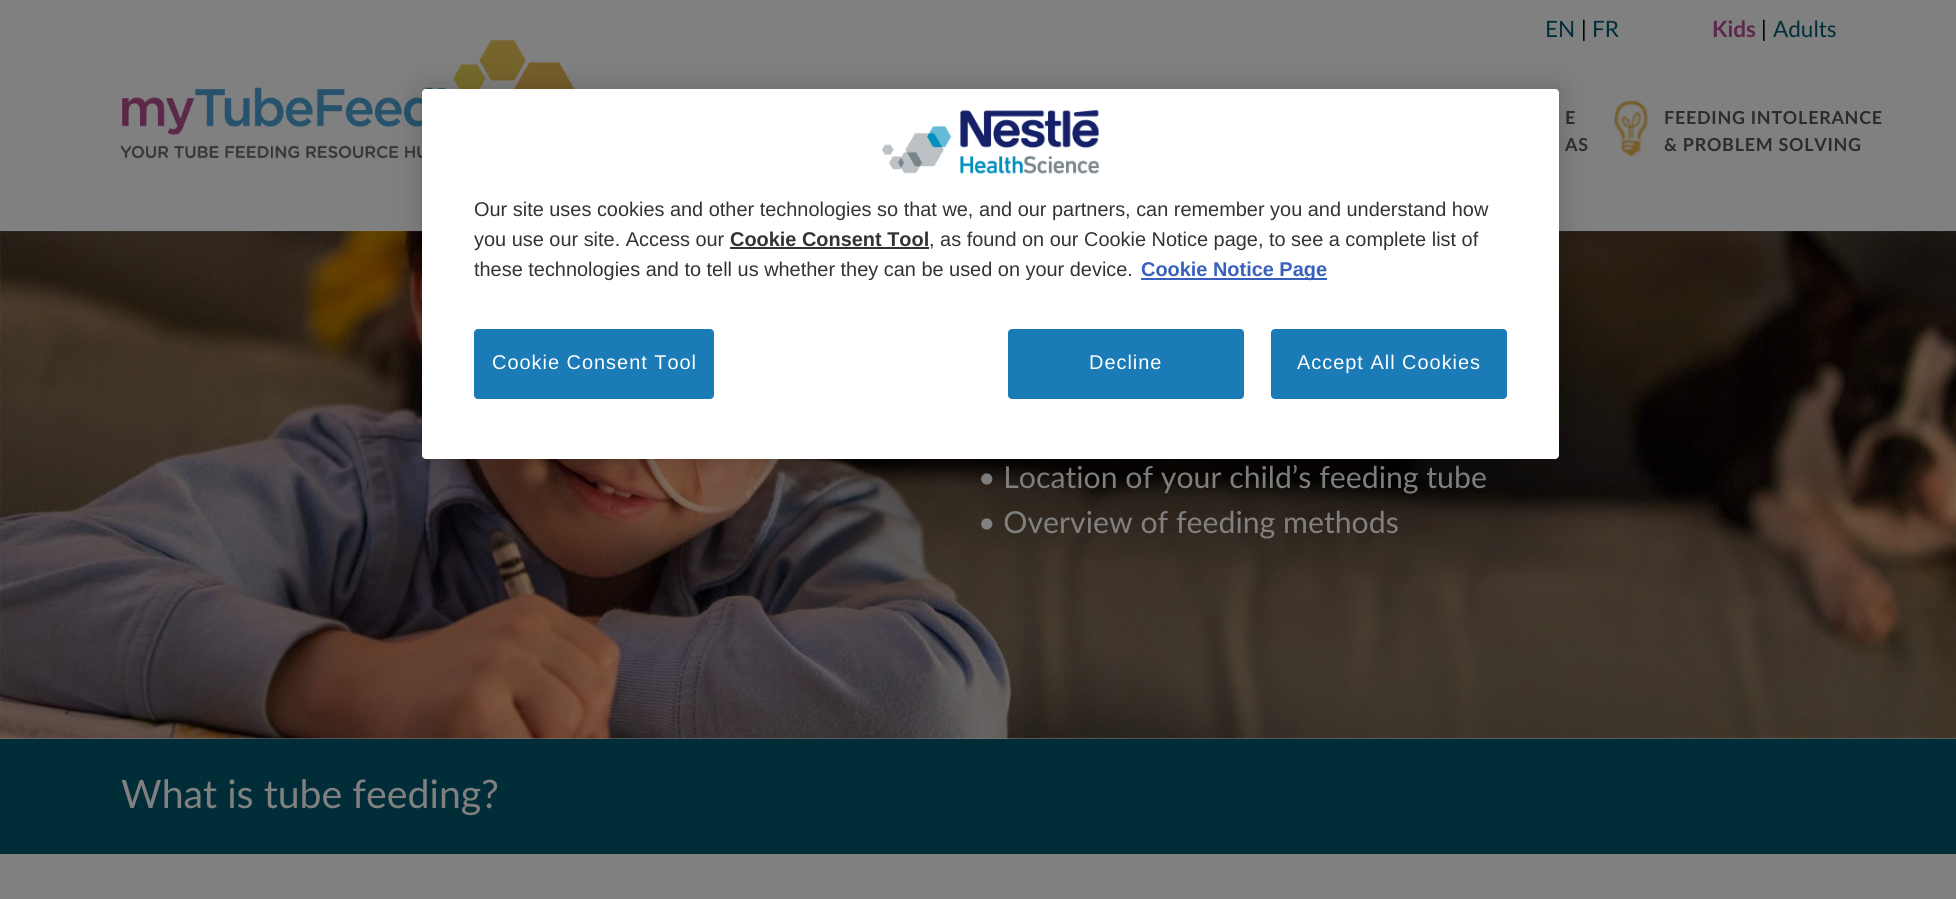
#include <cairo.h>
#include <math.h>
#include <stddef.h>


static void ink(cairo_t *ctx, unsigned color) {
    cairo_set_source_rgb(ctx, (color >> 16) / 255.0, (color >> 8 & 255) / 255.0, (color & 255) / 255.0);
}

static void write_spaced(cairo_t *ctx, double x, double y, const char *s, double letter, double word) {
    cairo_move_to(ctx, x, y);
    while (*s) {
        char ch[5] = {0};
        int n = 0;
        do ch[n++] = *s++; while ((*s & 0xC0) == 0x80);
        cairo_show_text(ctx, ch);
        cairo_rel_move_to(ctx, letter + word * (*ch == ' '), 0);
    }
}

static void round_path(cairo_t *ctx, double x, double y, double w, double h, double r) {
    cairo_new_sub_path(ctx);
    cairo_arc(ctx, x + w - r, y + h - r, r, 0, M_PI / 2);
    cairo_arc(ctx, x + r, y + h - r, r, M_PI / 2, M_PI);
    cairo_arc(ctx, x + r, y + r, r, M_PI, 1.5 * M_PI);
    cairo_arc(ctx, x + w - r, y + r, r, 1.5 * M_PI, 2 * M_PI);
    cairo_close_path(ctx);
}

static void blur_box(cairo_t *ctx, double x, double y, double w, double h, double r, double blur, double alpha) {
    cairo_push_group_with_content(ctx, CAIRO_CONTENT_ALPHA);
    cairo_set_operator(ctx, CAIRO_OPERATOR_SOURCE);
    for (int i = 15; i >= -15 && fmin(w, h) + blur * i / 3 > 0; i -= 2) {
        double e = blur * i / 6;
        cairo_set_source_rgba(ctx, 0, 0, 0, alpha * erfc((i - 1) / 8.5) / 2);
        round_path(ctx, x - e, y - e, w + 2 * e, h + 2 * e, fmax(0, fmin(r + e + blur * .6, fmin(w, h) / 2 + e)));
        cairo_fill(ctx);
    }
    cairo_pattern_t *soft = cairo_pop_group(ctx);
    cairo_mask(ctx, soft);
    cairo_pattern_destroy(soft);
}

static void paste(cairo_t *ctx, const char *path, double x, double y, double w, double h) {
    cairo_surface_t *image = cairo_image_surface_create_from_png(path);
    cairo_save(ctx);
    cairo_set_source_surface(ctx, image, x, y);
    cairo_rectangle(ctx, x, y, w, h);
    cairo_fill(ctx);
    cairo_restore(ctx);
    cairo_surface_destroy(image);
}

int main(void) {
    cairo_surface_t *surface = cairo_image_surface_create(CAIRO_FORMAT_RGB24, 1956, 899);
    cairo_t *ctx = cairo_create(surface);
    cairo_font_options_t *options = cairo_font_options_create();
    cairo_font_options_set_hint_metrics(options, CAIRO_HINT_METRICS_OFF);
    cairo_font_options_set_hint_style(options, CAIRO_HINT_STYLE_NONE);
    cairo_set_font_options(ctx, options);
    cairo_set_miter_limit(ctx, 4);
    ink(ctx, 0x808080);
    cairo_paint(ctx);
    cairo_select_font_face(ctx, "Lato", CAIRO_FONT_SLANT_NORMAL, CAIRO_FONT_WEIGHT_NORMAL);
    cairo_set_font_size(ctx, 22.5);
    ink(ctx, 0x002F3B);
    cairo_move_to(ctx, 1545, 37);
    cairo_show_text(ctx, "EN");
    ink(ctx, 0x000000);
    cairo_move_to(ctx, 1581, 37);
    cairo_show_text(ctx, "|");
    ink(ctx, 0x002F3B);
    cairo_move_to(ctx, 1592, 37);
    cairo_show_text(ctx, "FR");
    cairo_select_font_face(ctx, "Lato", CAIRO_FONT_SLANT_NORMAL, CAIRO_FONT_WEIGHT_BOLD);
    ink(ctx, 0x5C284B);
    cairo_move_to(ctx, 1712, 37);
    cairo_show_text(ctx, "Kids");
    cairo_select_font_face(ctx, "Lato", CAIRO_FONT_SLANT_NORMAL, CAIRO_FONT_WEIGHT_NORMAL);
    ink(ctx, 0x000000);
    cairo_move_to(ctx, 1761, 37);
    cairo_show_text(ctx, "|");
    ink(ctx, 0x002F3B);
    cairo_move_to(ctx, 1773, 37);
    cairo_show_text(ctx, "Adults");
    paste(ctx, "media/1.png", 120, 40, 455, 119);
    cairo_select_font_face(ctx, "Lato", CAIRO_FONT_SLANT_NORMAL, CAIRO_FONT_WEIGHT_BOLD);
    cairo_set_font_size(ctx, 17.9);
    ink(ctx, 0x2C2C2E);
    write_spaced(ctx, 1565, 124, "E", 0.75, 0);
    write_spaced(ctx, 1565, 151, "AS", 0.75, 0);
    paste(ctx, "media/2.png", 1613, 100, 35, 56);
    write_spaced(ctx, 1664, 124, "FEEDING INTOLERANCE", 0.75, 0);
    write_spaced(ctx, 1664, 151, "& PROBLEM SOLVING", 0.75, 0);
    paste(ctx, "media/3.png", 0, 231, 1956, 508);
    cairo_select_font_face(ctx, "Lato", CAIRO_FONT_SLANT_NORMAL, CAIRO_FONT_WEIGHT_NORMAL);
    cairo_set_font_size(ctx, 30.25);
    ink(ctx, 0x808080);
    cairo_move_to(ctx, 978, 488);
    cairo_show_text(ctx, "• Location of your child’s feeding tube");
    cairo_move_to(ctx, 978, 533);
    cairo_show_text(ctx, "• Overview of feeding methods");
    ink(ctx, 0x002D38);
    cairo_rectangle(ctx, 0, 739, 1956, 115);
    cairo_fill(ctx);
    cairo_set_font_size(ctx, 39.25);
    ink(ctx, 0x808080);
    cairo_move_to(ctx, 121, 808);
    cairo_show_text(ctx, "What is tube feeding?");
    ink(ctx, 0x000000);
    blur_box(ctx, 422, 89, 1137, 370, 4, 16, 0.2);
    ink(ctx, 0xFFFFFF);
    round_path(ctx, 422, 89, 1137, 370, 4);
    cairo_fill(ctx);
    paste(ctx, "media/4.png", 882, 110, 217, 64);
    cairo_select_font_face(ctx, "Liberation Sans", CAIRO_FONT_SLANT_NORMAL, CAIRO_FONT_WEIGHT_NORMAL);
    cairo_set_font_size(ctx, 19.92);
    ink(ctx, 0x333333);
    cairo_move_to(ctx, 474, 216);
    cairo_show_text(ctx, "Our site uses cookies and other technologies so that we, and our partners, can remember you and understand how");
    cairo_move_to(ctx, 474, 246);
    cairo_show_text(ctx, "you use our site. Access our");
    cairo_select_font_face(ctx, "Liberation Sans", CAIRO_FONT_SLANT_NORMAL, CAIRO_FONT_WEIGHT_BOLD);
    cairo_move_to(ctx, 730, 246);
    cairo_show_text(ctx, "Cookie Consent Tool");
    cairo_rectangle(ctx, 730, 247, 199, 2);
    cairo_fill(ctx);
    cairo_select_font_face(ctx, "Liberation Sans", CAIRO_FONT_SLANT_NORMAL, CAIRO_FONT_WEIGHT_NORMAL);
    cairo_move_to(ctx, 929, 246);
    cairo_show_text(ctx, ", as found on our Cookie Notice page, to see a complete list of");
    cairo_move_to(ctx, 474, 276);
    cairo_show_text(ctx, "these technologies and to tell us whether they can be used on your device.");
    ink(ctx, 0x3860BE);
    cairo_rectangle(ctx, 1141, 278, 186, 2);
    cairo_fill(ctx);
    cairo_select_font_face(ctx, "Liberation Sans", CAIRO_FONT_SLANT_NORMAL, CAIRO_FONT_WEIGHT_BOLD);
    cairo_move_to(ctx, 1141, 276);
    cairo_show_text(ctx, "Cookie Notice Page");
    ink(ctx, 0x1B7BB7);
    round_path(ctx, 474, 329, 240, 70, 4);
    cairo_fill(ctx);
    cairo_select_font_face(ctx, "Liberation Sans", CAIRO_FONT_SLANT_NORMAL, CAIRO_FONT_WEIGHT_NORMAL);
    ink(ctx, 0xFFFFFF);
    write_spaced(ctx, 492, 369, "Cookie Consent Tool", 1, 0);
    ink(ctx, 0x1B7BB7);
    round_path(ctx, 1008, 329, 236, 70, 4);
    cairo_fill(ctx);
    ink(ctx, 0xFFFFFF);
    write_spaced(ctx, 1089, 369, "Decline", 1, 0);
    ink(ctx, 0x1B7BB7);
    round_path(ctx, 1271, 329, 236, 70, 4);
    cairo_fill(ctx);
    ink(ctx, 0xFFFFFF);
    write_spaced(ctx, 1297, 369, "Accept All Cookies", 1, 0);
    cairo_surface_write_to_png(surface, "image.png");
    cairo_font_options_destroy(options);
    cairo_destroy(ctx);
    cairo_surface_destroy(surface);
    return 0;
}
